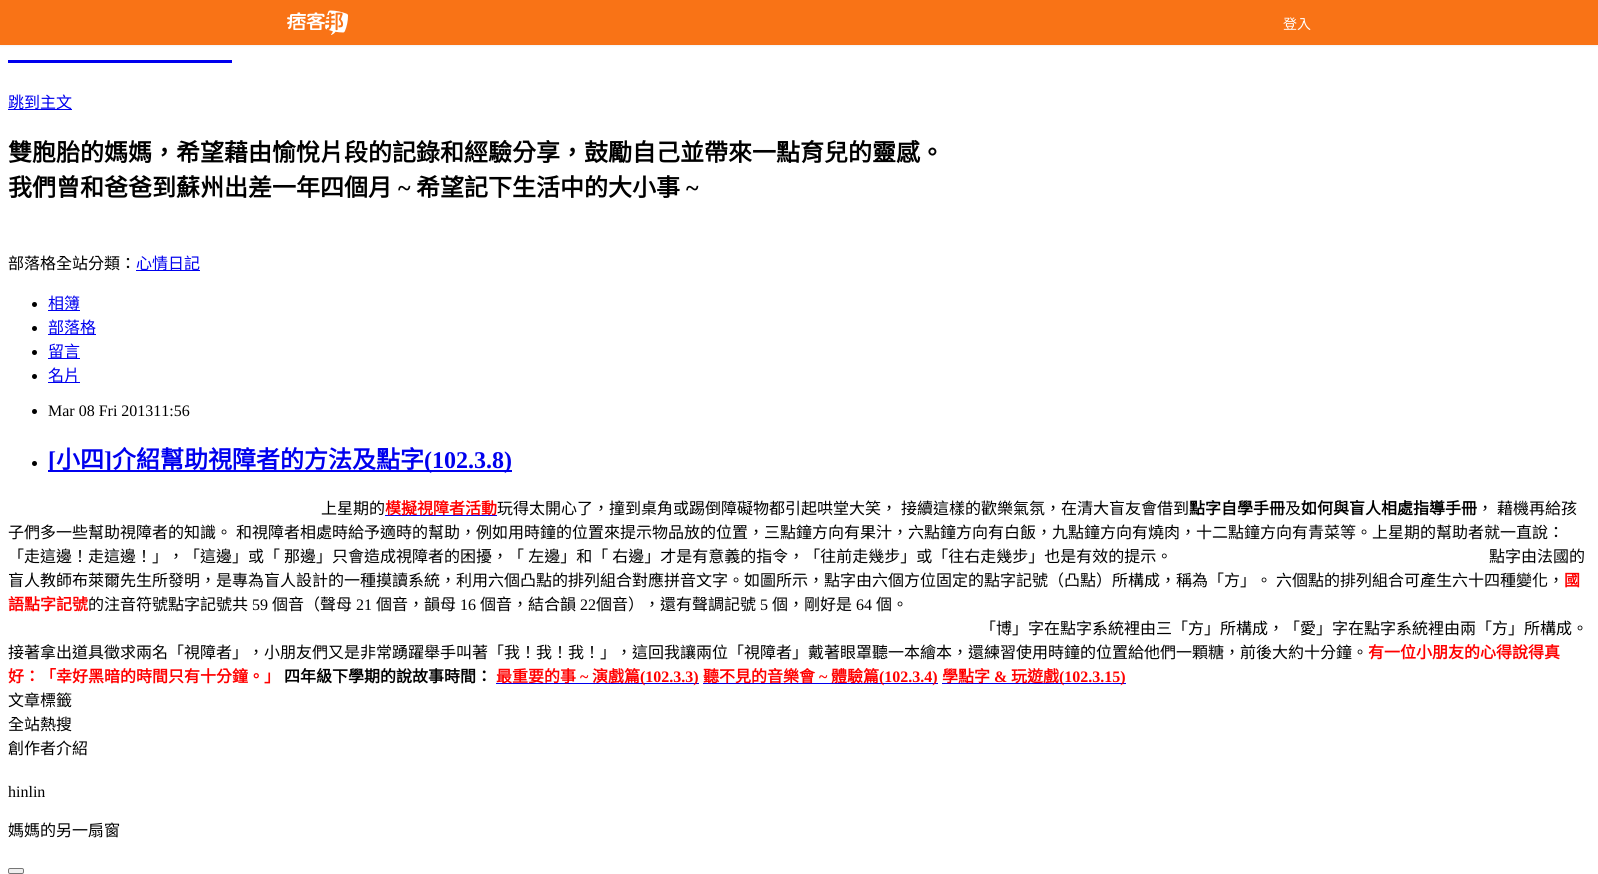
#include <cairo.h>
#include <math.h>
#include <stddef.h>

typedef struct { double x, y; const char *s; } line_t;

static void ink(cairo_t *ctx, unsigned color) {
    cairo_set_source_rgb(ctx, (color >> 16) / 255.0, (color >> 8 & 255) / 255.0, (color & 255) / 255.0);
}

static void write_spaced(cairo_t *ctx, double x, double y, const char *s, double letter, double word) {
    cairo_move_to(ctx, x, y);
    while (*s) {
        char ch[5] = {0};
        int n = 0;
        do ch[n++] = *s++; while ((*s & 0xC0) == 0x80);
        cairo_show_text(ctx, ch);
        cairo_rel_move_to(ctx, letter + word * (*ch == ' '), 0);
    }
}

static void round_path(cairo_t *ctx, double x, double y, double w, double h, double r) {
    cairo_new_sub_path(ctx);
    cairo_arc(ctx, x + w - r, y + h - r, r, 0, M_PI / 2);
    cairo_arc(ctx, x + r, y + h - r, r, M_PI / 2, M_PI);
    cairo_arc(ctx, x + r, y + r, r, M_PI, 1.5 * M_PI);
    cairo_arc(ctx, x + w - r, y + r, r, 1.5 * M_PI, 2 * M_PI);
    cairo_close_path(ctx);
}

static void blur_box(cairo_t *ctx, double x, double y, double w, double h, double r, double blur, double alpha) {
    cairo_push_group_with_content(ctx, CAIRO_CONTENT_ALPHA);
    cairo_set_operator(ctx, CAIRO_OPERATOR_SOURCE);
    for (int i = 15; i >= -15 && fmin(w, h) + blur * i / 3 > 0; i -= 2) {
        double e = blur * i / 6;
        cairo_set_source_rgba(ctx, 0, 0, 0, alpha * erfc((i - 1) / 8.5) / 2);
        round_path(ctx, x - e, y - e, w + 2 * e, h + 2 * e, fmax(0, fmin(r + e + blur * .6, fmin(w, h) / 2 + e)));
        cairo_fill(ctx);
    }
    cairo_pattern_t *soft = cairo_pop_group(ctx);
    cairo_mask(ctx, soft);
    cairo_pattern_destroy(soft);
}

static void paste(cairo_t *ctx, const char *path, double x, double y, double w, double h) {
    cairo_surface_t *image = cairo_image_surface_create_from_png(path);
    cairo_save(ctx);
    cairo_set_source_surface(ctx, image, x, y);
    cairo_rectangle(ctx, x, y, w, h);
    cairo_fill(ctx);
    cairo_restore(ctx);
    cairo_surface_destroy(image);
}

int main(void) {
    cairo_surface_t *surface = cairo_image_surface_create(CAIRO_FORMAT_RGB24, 1598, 874);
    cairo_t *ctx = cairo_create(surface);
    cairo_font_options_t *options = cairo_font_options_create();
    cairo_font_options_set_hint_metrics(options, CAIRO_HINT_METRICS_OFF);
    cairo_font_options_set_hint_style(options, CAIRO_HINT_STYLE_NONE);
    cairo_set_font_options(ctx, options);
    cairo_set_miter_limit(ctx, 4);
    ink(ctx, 0xFFFFFF);
    cairo_paint(ctx);
    ink(ctx, 0x000000);
    blur_box(ctx, 0, 1, 1598, 45, 0, 1, 0.05);
    ink(ctx, 0xF97316);
    cairo_rectangle(ctx, 0, 0, 1598, 45);
    cairo_fill(ctx);
    paste(ctx, "media/1.png", 287, 10, 61, 25);
    cairo_select_font_face(ctx, "Noto Sans CJK TC", CAIRO_FONT_SLANT_NORMAL, CAIRO_FONT_WEIGHT_NORMAL);
    cairo_set_font_size(ctx, 14);
    ink(ctx, 0xFFFFFF);
    cairo_move_to(ctx, 1283, 29);
    cairo_show_text(ctx, "登入");
    ink(ctx, 0x0000EE);
    cairo_rectangle(ctx, 8, 60, 224, 3);
    cairo_fill(ctx);
    cairo_rectangle(ctx, 8, 109, 64, 1);
    cairo_fill(ctx);
    cairo_set_font_size(ctx, 16);
    cairo_move_to(ctx, 8, 108);
    cairo_show_text(ctx, "跳到主文");
    cairo_select_font_face(ctx, "Noto Sans CJK TC", CAIRO_FONT_SLANT_NORMAL, CAIRO_FONT_WEIGHT_BOLD);
    cairo_set_font_size(ctx, 24);
    ink(ctx, 0x000000);
    cairo_move_to(ctx, 8, 161);
    cairo_show_text(ctx, "雙胞胎的媽媽，希望藉由愉悅片段的記錄和經驗分享，鼓勵自己並帶來一點育兒的靈感。");
    cairo_move_to(ctx, 8, 196);
    cairo_show_text(ctx, "我們曾和爸爸到蘇州出差一年四個月");
    cairo_select_font_face(ctx, "Liberation Serif", CAIRO_FONT_SLANT_NORMAL, CAIRO_FONT_WEIGHT_BOLD);
    cairo_move_to(ctx, 398, 196);
    cairo_show_text(ctx, "~");
    cairo_select_font_face(ctx, "Noto Sans CJK TC", CAIRO_FONT_SLANT_NORMAL, CAIRO_FONT_WEIGHT_BOLD);
    cairo_move_to(ctx, 416, 196);
    cairo_show_text(ctx, "希望記下生活中的大小事");
    cairo_select_font_face(ctx, "Liberation Serif", CAIRO_FONT_SLANT_NORMAL, CAIRO_FONT_WEIGHT_BOLD);
    cairo_move_to(ctx, 686, 196);
    cairo_show_text(ctx, "~");
    cairo_select_font_face(ctx, "Noto Sans CJK TC", CAIRO_FONT_SLANT_NORMAL, CAIRO_FONT_WEIGHT_NORMAL);
    cairo_set_font_size(ctx, 16);
    cairo_move_to(ctx, 8, 269);
    cairo_show_text(ctx, "部落格全站分類：");
    ink(ctx, 0x0000EE);
    cairo_rectangle(ctx, 136, 270, 64, 1);
    cairo_fill(ctx);
    cairo_move_to(ctx, 136, 269);
    cairo_show_text(ctx, "心情日記");
    ink(ctx, 0x000000);
    cairo_new_path(ctx);
    cairo_arc(ctx, 34.5, 304.5, 2.5, 0, 2 * M_PI);
    cairo_fill(ctx);
    ink(ctx, 0x0000EE);
    cairo_rectangle(ctx, 48, 310, 32, 1);
    cairo_fill(ctx);
    cairo_move_to(ctx, 48, 309);
    cairo_show_text(ctx, "相簿");
    ink(ctx, 0x000000);
    cairo_new_path(ctx);
    cairo_arc(ctx, 34.5, 328.5, 2.5, 0, 2 * M_PI);
    cairo_fill(ctx);
    ink(ctx, 0x0000EE);
    cairo_rectangle(ctx, 48, 334, 48, 1);
    cairo_fill(ctx);
    cairo_move_to(ctx, 48, 333);
    cairo_show_text(ctx, "部落格");
    ink(ctx, 0x000000);
    cairo_new_path(ctx);
    cairo_arc(ctx, 34.5, 352.5, 2.5, 0, 2 * M_PI);
    cairo_fill(ctx);
    ink(ctx, 0x0000EE);
    cairo_rectangle(ctx, 48, 358, 32, 1);
    cairo_fill(ctx);
    cairo_move_to(ctx, 48, 357);
    cairo_show_text(ctx, "留言");
    ink(ctx, 0x000000);
    cairo_new_path(ctx);
    cairo_arc(ctx, 34.5, 376.5, 2.5, 0, 2 * M_PI);
    cairo_fill(ctx);
    ink(ctx, 0x0000EE);
    cairo_rectangle(ctx, 48, 382, 32, 1);
    cairo_fill(ctx);
    cairo_move_to(ctx, 48, 381);
    cairo_show_text(ctx, "名片");
    ink(ctx, 0x000000);
    cairo_new_path(ctx);
    cairo_arc(ctx, 34.5, 411.5, 2.5, 0, 2 * M_PI);
    cairo_fill(ctx);
    cairo_select_font_face(ctx, "Liberation Serif", CAIRO_FONT_SLANT_NORMAL, CAIRO_FONT_WEIGHT_NORMAL);
    cairo_move_to(ctx, 48, 416);
    cairo_show_text(ctx, "Mar 08 Fri 201311:56");
    cairo_new_path(ctx);
    cairo_arc(ctx, 34.5, 463.5, 2.5, 0, 2 * M_PI);
    cairo_fill(ctx);
    ink(ctx, 0x0000EE);
    cairo_rectangle(ctx, 48, 470, 464, 2);
    cairo_fill(ctx);
    cairo_select_font_face(ctx, "Liberation Serif", CAIRO_FONT_SLANT_NORMAL, CAIRO_FONT_WEIGHT_BOLD);
    cairo_set_font_size(ctx, 24);
    cairo_move_to(ctx, 48, 468);
    cairo_show_text(ctx, "[");
    cairo_select_font_face(ctx, "Noto Sans CJK TC", CAIRO_FONT_SLANT_NORMAL, CAIRO_FONT_WEIGHT_BOLD);
    cairo_move_to(ctx, 56, 468);
    cairo_show_text(ctx, "小四");
    cairo_select_font_face(ctx, "Liberation Serif", CAIRO_FONT_SLANT_NORMAL, CAIRO_FONT_WEIGHT_BOLD);
    cairo_move_to(ctx, 104, 468);
    cairo_show_text(ctx, "]");
    cairo_select_font_face(ctx, "Noto Sans CJK TC", CAIRO_FONT_SLANT_NORMAL, CAIRO_FONT_WEIGHT_BOLD);
    cairo_move_to(ctx, 112, 468);
    cairo_show_text(ctx, "介紹幫助視障者的方法及點字");
    cairo_select_font_face(ctx, "Liberation Serif", CAIRO_FONT_SLANT_NORMAL, CAIRO_FONT_WEIGHT_BOLD);
    cairo_move_to(ctx, 424, 468);
    cairo_show_text(ctx, "(102.3.8)");
    cairo_select_font_face(ctx, "Noto Sans CJK TC", CAIRO_FONT_SLANT_NORMAL, CAIRO_FONT_WEIGHT_NORMAL);
    cairo_set_font_size(ctx, 16);
    ink(ctx, 0x000000);
    cairo_move_to(ctx, 321, 514);
    cairo_show_text(ctx, "上星期的");
    ink(ctx, 0x0000EE);
    cairo_rectangle(ctx, 385, 515, 112, 1);
    cairo_fill(ctx);
    cairo_select_font_face(ctx, "Noto Sans CJK TC", CAIRO_FONT_SLANT_NORMAL, CAIRO_FONT_WEIGHT_BOLD);
    ink(ctx, 0xFF0000);
    cairo_move_to(ctx, 385, 514);
    cairo_show_text(ctx, "模擬視障者活動");
    cairo_select_font_face(ctx, "Noto Sans CJK TC", CAIRO_FONT_SLANT_NORMAL, CAIRO_FONT_WEIGHT_NORMAL);
    ink(ctx, 0x000000);
    write_spaced(ctx, 497, 514, "玩得太開心了，撞到桌角或踢倒障礙物都引起哄堂大笑， 接續這樣的歡樂氣氛，在清大盲友會借到", 0, 0.5);
    cairo_select_font_face(ctx, "Noto Sans CJK TC", CAIRO_FONT_SLANT_NORMAL, CAIRO_FONT_WEIGHT_BOLD);
    cairo_move_to(ctx, 1189, 514);
    cairo_show_text(ctx, "點字自學手冊");
    cairo_select_font_face(ctx, "Noto Sans CJK TC", CAIRO_FONT_SLANT_NORMAL, CAIRO_FONT_WEIGHT_NORMAL);
    cairo_move_to(ctx, 1285, 514);
    cairo_show_text(ctx, "及");
    cairo_select_font_face(ctx, "Noto Sans CJK TC", CAIRO_FONT_SLANT_NORMAL, CAIRO_FONT_WEIGHT_BOLD);
    cairo_move_to(ctx, 1301, 514);
    cairo_show_text(ctx, "如何與盲人相處指導手冊");
    cairo_select_font_face(ctx, "Noto Sans CJK TC", CAIRO_FONT_SLANT_NORMAL, CAIRO_FONT_WEIGHT_NORMAL);
    write_spaced(ctx, 1477, 514, "， 藉機再給孩", 0, 0.5);
    cairo_move_to(ctx, 8, 538);
    cairo_show_text(ctx, "子們多一些幫助視障者的知識。");
    cairo_move_to(ctx, 236, 538);
    cairo_show_text(ctx, "和視障者相處時給予適時的幫助，例如用時鐘的位置來提示物品放的位置，三點鐘方向有果汁，六點鐘方向有白飯，九點鐘方向有燒肉，十二點鐘方向有青菜等。上星期的幫助者就一直說：");
    write_spaced(ctx, 8, 562, "「走這邊！走這邊！」，「這邊」或「 那邊」只會造成視障者的困擾，「 左邊」和「 右邊」才是有意義的指令，「往前走幾步」或「往右走幾步」也是有效的提示。", 0, 0.5);
    {
        static const line_t items[] = {
            {1489, 562, "點字由法國的"},
            {8, 586, "盲人教師布萊爾先生所發明，是專為盲人設計的一種摸讀系統，利用六個凸點的排列組合對應拼音文字。如圖所示，點字由六個方位固定的點字記號（凸點）所構成，稱為「方」。"},
            {1276, 586, "六個點的排列組合可產生六十四種變化，"},
        };
        for (size_t i = 0; i < sizeof items / sizeof *items; i++) {
            cairo_move_to(ctx, items[i].x, items[i].y);
            cairo_show_text(ctx, items[i].s);
        }
    }
    cairo_select_font_face(ctx, "Noto Sans CJK TC", CAIRO_FONT_SLANT_NORMAL, CAIRO_FONT_WEIGHT_BOLD);
    ink(ctx, 0xFF0000);
    cairo_move_to(ctx, 1564, 586);
    cairo_show_text(ctx, "國");
    cairo_move_to(ctx, 8, 610);
    cairo_show_text(ctx, "語點字記號");
    cairo_select_font_face(ctx, "Noto Sans CJK TC", CAIRO_FONT_SLANT_NORMAL, CAIRO_FONT_WEIGHT_NORMAL);
    ink(ctx, 0x000000);
    cairo_move_to(ctx, 88, 610);
    cairo_show_text(ctx, "的注音符號點字記號共");
    cairo_select_font_face(ctx, "Liberation Serif", CAIRO_FONT_SLANT_NORMAL, CAIRO_FONT_WEIGHT_NORMAL);
    cairo_move_to(ctx, 252, 610);
    cairo_show_text(ctx, "59");
    cairo_select_font_face(ctx, "Noto Sans CJK TC", CAIRO_FONT_SLANT_NORMAL, CAIRO_FONT_WEIGHT_NORMAL);
    cairo_move_to(ctx, 272, 610);
    cairo_show_text(ctx, "個音（聲母");
    cairo_select_font_face(ctx, "Liberation Serif", CAIRO_FONT_SLANT_NORMAL, CAIRO_FONT_WEIGHT_NORMAL);
    cairo_move_to(ctx, 356, 610);
    cairo_show_text(ctx, "21");
    cairo_select_font_face(ctx, "Noto Sans CJK TC", CAIRO_FONT_SLANT_NORMAL, CAIRO_FONT_WEIGHT_NORMAL);
    cairo_move_to(ctx, 376, 610);
    cairo_show_text(ctx, "個音，韻母");
    cairo_select_font_face(ctx, "Liberation Serif", CAIRO_FONT_SLANT_NORMAL, CAIRO_FONT_WEIGHT_NORMAL);
    cairo_move_to(ctx, 460, 610);
    cairo_show_text(ctx, "16");
    cairo_select_font_face(ctx, "Noto Sans CJK TC", CAIRO_FONT_SLANT_NORMAL, CAIRO_FONT_WEIGHT_NORMAL);
    cairo_move_to(ctx, 480, 610);
    cairo_show_text(ctx, "個音，結合韻");
    cairo_select_font_face(ctx, "Liberation Serif", CAIRO_FONT_SLANT_NORMAL, CAIRO_FONT_WEIGHT_NORMAL);
    cairo_move_to(ctx, 580, 610);
    cairo_show_text(ctx, "22");
    cairo_select_font_face(ctx, "Noto Sans CJK TC", CAIRO_FONT_SLANT_NORMAL, CAIRO_FONT_WEIGHT_NORMAL);
    cairo_move_to(ctx, 596, 610);
    cairo_show_text(ctx, "個音），還有聲調記號");
    cairo_select_font_face(ctx, "Liberation Serif", CAIRO_FONT_SLANT_NORMAL, CAIRO_FONT_WEIGHT_NORMAL);
    cairo_move_to(ctx, 760, 610);
    cairo_show_text(ctx, "5");
    cairo_select_font_face(ctx, "Noto Sans CJK TC", CAIRO_FONT_SLANT_NORMAL, CAIRO_FONT_WEIGHT_NORMAL);
    cairo_move_to(ctx, 772, 610);
    cairo_show_text(ctx, "個，剛好是");
    cairo_select_font_face(ctx, "Liberation Serif", CAIRO_FONT_SLANT_NORMAL, CAIRO_FONT_WEIGHT_NORMAL);
    cairo_move_to(ctx, 856, 610);
    cairo_show_text(ctx, "64");
    cairo_select_font_face(ctx, "Noto Sans CJK TC", CAIRO_FONT_SLANT_NORMAL, CAIRO_FONT_WEIGHT_NORMAL);
    {
        static const line_t items[] = {
            {876, 610, "個。"},
            {980, 634, "「博」字在點字系統裡由三「方」所構成，「愛」字在點字系統裡由兩「方」所構成。"},
            {8, 658, "接著拿出道具徵求兩名「視障者」，小朋友們又是非常踴躍舉手叫著「我！我！我！」，這回我讓兩位「視障者」戴著眼罩聽一本繪本，還練習使用時鐘的位置給他們一顆糖，前後大約十分鐘。"},
        };
        for (size_t i = 0; i < sizeof items / sizeof *items; i++) {
            cairo_move_to(ctx, items[i].x, items[i].y);
            cairo_show_text(ctx, items[i].s);
        }
    }
    cairo_select_font_face(ctx, "Noto Sans CJK TC", CAIRO_FONT_SLANT_NORMAL, CAIRO_FONT_WEIGHT_BOLD);
    ink(ctx, 0xFF0000);
    cairo_move_to(ctx, 1368, 658);
    cairo_show_text(ctx, "有一位小朋友的心得說得真");
    cairo_move_to(ctx, 8, 682);
    cairo_show_text(ctx, "好：「幸好黑暗的時間只有十分鐘。」");
    ink(ctx, 0x000000);
    cairo_move_to(ctx, 284, 682);
    cairo_show_text(ctx, "四年級下學期的說故事時間：");
    ink(ctx, 0x0000EE);
    cairo_rectangle(ctx, 496, 683, 203, 1);
    cairo_fill(ctx);
    ink(ctx, 0xFF0000);
    cairo_move_to(ctx, 496, 682);
    cairo_show_text(ctx, "最重要的事");
    cairo_select_font_face(ctx, "Liberation Serif", CAIRO_FONT_SLANT_NORMAL, CAIRO_FONT_WEIGHT_BOLD);
    cairo_move_to(ctx, 580, 682);
    cairo_show_text(ctx, "~");
    cairo_select_font_face(ctx, "Noto Sans CJK TC", CAIRO_FONT_SLANT_NORMAL, CAIRO_FONT_WEIGHT_BOLD);
    cairo_move_to(ctx, 592, 682);
    cairo_show_text(ctx, "演戲篇");
    cairo_select_font_face(ctx, "Liberation Serif", CAIRO_FONT_SLANT_NORMAL, CAIRO_FONT_WEIGHT_BOLD);
    cairo_move_to(ctx, 640, 682);
    cairo_show_text(ctx, "(102.3.3)");
    ink(ctx, 0x0000EE);
    cairo_rectangle(ctx, 703, 683, 235, 1);
    cairo_fill(ctx);
    cairo_select_font_face(ctx, "Noto Sans CJK TC", CAIRO_FONT_SLANT_NORMAL, CAIRO_FONT_WEIGHT_BOLD);
    ink(ctx, 0xFF0000);
    cairo_move_to(ctx, 703, 682);
    cairo_show_text(ctx, "聽不見的音樂會");
    cairo_select_font_face(ctx, "Liberation Serif", CAIRO_FONT_SLANT_NORMAL, CAIRO_FONT_WEIGHT_BOLD);
    cairo_move_to(ctx, 819, 682);
    cairo_show_text(ctx, "~");
    cairo_select_font_face(ctx, "Noto Sans CJK TC", CAIRO_FONT_SLANT_NORMAL, CAIRO_FONT_WEIGHT_BOLD);
    cairo_move_to(ctx, 831, 682);
    cairo_show_text(ctx, "體驗篇");
    cairo_select_font_face(ctx, "Liberation Serif", CAIRO_FONT_SLANT_NORMAL, CAIRO_FONT_WEIGHT_BOLD);
    cairo_move_to(ctx, 879, 682);
    cairo_show_text(ctx, "(102.3.4)");
    ink(ctx, 0x0000EE);
    cairo_rectangle(ctx, 942, 683, 184, 1);
    cairo_fill(ctx);
    cairo_select_font_face(ctx, "Noto Sans CJK TC", CAIRO_FONT_SLANT_NORMAL, CAIRO_FONT_WEIGHT_BOLD);
    ink(ctx, 0xFF0000);
    cairo_move_to(ctx, 942, 682);
    cairo_show_text(ctx, "學點字");
    cairo_select_font_face(ctx, "Liberation Serif", CAIRO_FONT_SLANT_NORMAL, CAIRO_FONT_WEIGHT_BOLD);
    cairo_move_to(ctx, 994, 682);
    cairo_show_text(ctx, "&");
    cairo_select_font_face(ctx, "Noto Sans CJK TC", CAIRO_FONT_SLANT_NORMAL, CAIRO_FONT_WEIGHT_BOLD);
    cairo_move_to(ctx, 1011, 682);
    cairo_show_text(ctx, "玩遊戲");
    cairo_select_font_face(ctx, "Liberation Serif", CAIRO_FONT_SLANT_NORMAL, CAIRO_FONT_WEIGHT_BOLD);
    cairo_move_to(ctx, 1059, 682);
    cairo_show_text(ctx, "(102.3.15)");
    cairo_select_font_face(ctx, "Noto Sans CJK TC", CAIRO_FONT_SLANT_NORMAL, CAIRO_FONT_WEIGHT_NORMAL);
    ink(ctx, 0x000000);
    {
        static const line_t items[] = {
            {8, 706, "文章標籤"},
            {8, 730, "全站熱搜"},
            {8, 754, "創作者介紹"},
        };
        for (size_t i = 0; i < sizeof items / sizeof *items; i++) {
            cairo_move_to(ctx, items[i].x, items[i].y);
            cairo_show_text(ctx, items[i].s);
        }
    }
    cairo_select_font_face(ctx, "Liberation Serif", CAIRO_FONT_SLANT_NORMAL, CAIRO_FONT_WEIGHT_NORMAL);
    cairo_move_to(ctx, 8, 797);
    cairo_show_text(ctx, "hinlin");
    cairo_select_font_face(ctx, "Noto Sans CJK TC", CAIRO_FONT_SLANT_NORMAL, CAIRO_FONT_WEIGHT_NORMAL);
    cairo_move_to(ctx, 8, 836);
    cairo_show_text(ctx, "媽媽的另一扇窗");
    ink(ctx, 0xEFEFEF);
    round_path(ctx, 8.5, 868.5, 15, 5, 1.5);
    cairo_fill_preserve(ctx);
    ink(ctx, 0x767676);
    cairo_set_line_width(ctx, 1);
    cairo_stroke(ctx);
    cairo_surface_write_to_png(surface, "image.png");
    cairo_font_options_destroy(options);
    cairo_destroy(ctx);
    cairo_surface_destroy(surface);
    return 0;
}
